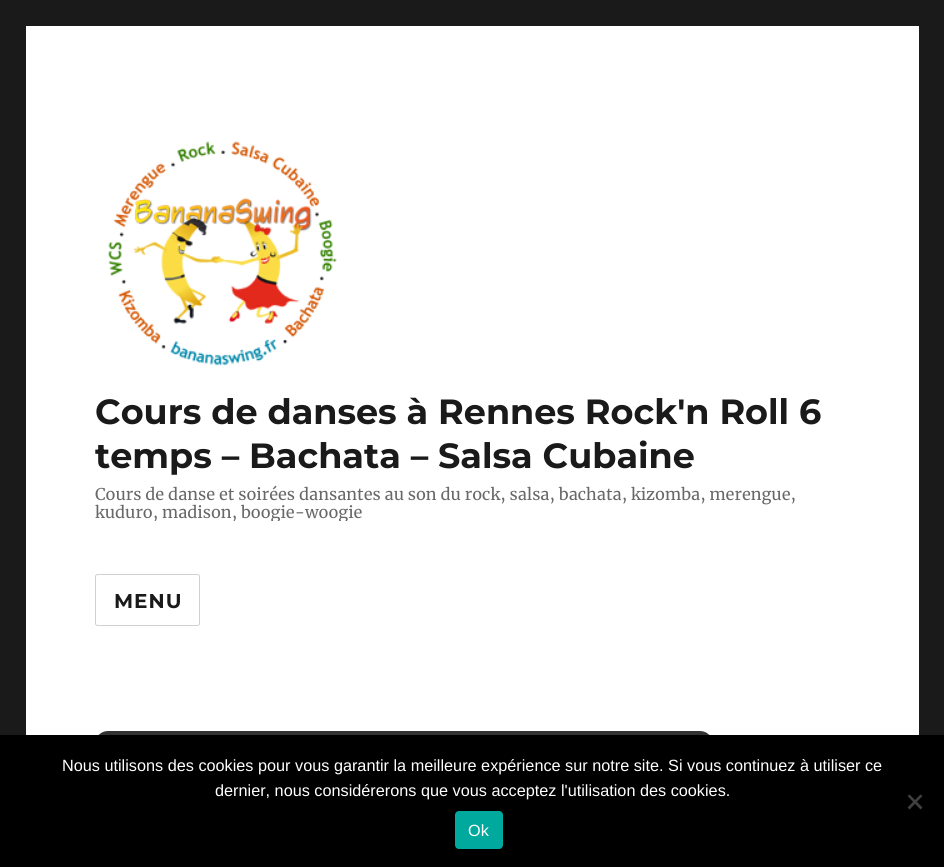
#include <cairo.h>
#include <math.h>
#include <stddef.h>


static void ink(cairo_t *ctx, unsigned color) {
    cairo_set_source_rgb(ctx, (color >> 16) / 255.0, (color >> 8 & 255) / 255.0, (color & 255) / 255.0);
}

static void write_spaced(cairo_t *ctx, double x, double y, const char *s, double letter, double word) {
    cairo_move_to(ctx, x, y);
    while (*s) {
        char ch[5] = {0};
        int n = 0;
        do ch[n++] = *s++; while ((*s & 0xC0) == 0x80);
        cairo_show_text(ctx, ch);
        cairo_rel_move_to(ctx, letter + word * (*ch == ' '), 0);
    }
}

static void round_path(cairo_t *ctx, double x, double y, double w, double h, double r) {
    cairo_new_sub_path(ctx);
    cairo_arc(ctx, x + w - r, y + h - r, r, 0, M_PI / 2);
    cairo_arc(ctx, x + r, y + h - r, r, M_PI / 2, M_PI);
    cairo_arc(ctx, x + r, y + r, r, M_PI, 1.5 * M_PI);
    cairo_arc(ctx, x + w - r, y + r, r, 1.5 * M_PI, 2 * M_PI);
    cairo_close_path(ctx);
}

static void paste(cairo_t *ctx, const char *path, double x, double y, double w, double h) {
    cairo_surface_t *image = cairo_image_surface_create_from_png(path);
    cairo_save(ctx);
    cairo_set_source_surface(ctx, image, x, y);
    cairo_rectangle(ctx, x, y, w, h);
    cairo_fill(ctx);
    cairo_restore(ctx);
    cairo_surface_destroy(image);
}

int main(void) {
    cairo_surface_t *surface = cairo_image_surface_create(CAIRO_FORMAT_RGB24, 944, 867);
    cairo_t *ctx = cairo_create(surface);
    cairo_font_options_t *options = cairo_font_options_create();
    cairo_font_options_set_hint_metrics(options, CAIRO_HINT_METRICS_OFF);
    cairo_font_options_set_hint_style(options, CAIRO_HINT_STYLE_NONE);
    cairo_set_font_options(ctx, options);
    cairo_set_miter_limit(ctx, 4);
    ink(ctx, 0x1A1A1A);
    cairo_paint(ctx);
    ink(ctx, 0xFFFFFF);
    cairo_rectangle(ctx, 26, 26, 893, 709);
    cairo_fill(ctx);
    paste(ctx, "media/1.png", 108, 141, 229, 225);
    cairo_select_font_face(ctx, "Montserrat Thin", CAIRO_FONT_SLANT_NORMAL, CAIRO_FONT_WEIGHT_NORMAL);
    cairo_set_font_size(ctx, 35);
    ink(ctx, 0x1A1A1A);
    cairo_move_to(ctx, 95, 424);
    cairo_show_text(ctx, "Cours de danses à Rennes Rock'n Roll 6");
    cairo_move_to(ctx, 95, 468);
    cairo_show_text(ctx, "temps – Bachata – Salsa Cubaine");
    cairo_select_font_face(ctx, "Merriweather", CAIRO_FONT_SLANT_NORMAL, CAIRO_FONT_WEIGHT_NORMAL);
    cairo_set_font_size(ctx, 16.25);
    ink(ctx, 0x686868);
    cairo_move_to(ctx, 95, 500);
    cairo_show_text(ctx, "Cours de danse et soirées dansantes au son du rock, salsa, bachata, kizomba, merengue,");
    cairo_save(ctx);
    cairo_rectangle(ctx, 95, 131, 755, 390);
    cairo_clip(ctx);
    cairo_move_to(ctx, 95, 518);
    cairo_show_text(ctx, "kuduro, madison, boogie-woogie");
    cairo_restore(ctx);
    round_path(ctx, 95.5, 574.5, 104, 51, 2);
    ink(ctx, 0xD1D1D1);
    cairo_set_line_width(ctx, 1);
    cairo_stroke(ctx);
    cairo_select_font_face(ctx, "Montserrat Thin", CAIRO_FONT_SLANT_NORMAL, CAIRO_FONT_WEIGHT_NORMAL);
    cairo_set_font_size(ctx, 20);
    ink(ctx, 0x1A1A1A);
    write_spaced(ctx, 114, 608, "MENU", 1, 0);
    ink(ctx, 0x333333);
    round_path(ctx, 95, 731, 618, 110, 13);
    cairo_fill(ctx);
    ink(ctx, 0x000000);
    cairo_rectangle(ctx, 0, 735, 944, 132);
    cairo_fill(ctx);
    cairo_select_font_face(ctx, "Liberation Sans", CAIRO_FONT_SLANT_NORMAL, CAIRO_FONT_WEIGHT_NORMAL);
    cairo_set_font_size(ctx, 16.25);
    ink(ctx, 0xFFFFFF);
    cairo_move_to(ctx, 62, 771);
    cairo_show_text(ctx, "Nous utilisons des cookies pour vous garantir la meilleure expérience sur notre site. Si vous continuez à utiliser ce");
    cairo_move_to(ctx, 215, 796);
    cairo_show_text(ctx, "dernier, nous considérerons que vous acceptez l'utilisation des cookies.");
    ink(ctx, 0x404040);
    cairo_new_path(ctx);
    cairo_move_to(ctx, 920.5, 794.5);
    cairo_line_to(ctx, 922.5, 796);
    cairo_line_to(ctx, 909.5, 809.5);
    cairo_line_to(ctx, 907.5, 807.5);
    cairo_close_path(ctx);
    cairo_fill(ctx);
    cairo_new_path(ctx);
    cairo_move_to(ctx, 907.5, 796);
    cairo_line_to(ctx, 909.5, 794.5);
    cairo_line_to(ctx, 922.5, 807.5);
    cairo_line_to(ctx, 920.5, 809.5);
    cairo_close_path(ctx);
    cairo_fill(ctx);
    ink(ctx, 0x00A99D);
    round_path(ctx, 455, 811, 48, 38, 4);
    cairo_fill(ctx);
    ink(ctx, 0xFFFFFF);
    cairo_move_to(ctx, 468, 836);
    cairo_show_text(ctx, "Ok");
    cairo_surface_write_to_png(surface, "image.png");
    cairo_font_options_destroy(options);
    cairo_destroy(ctx);
    cairo_surface_destroy(surface);
    return 0;
}
